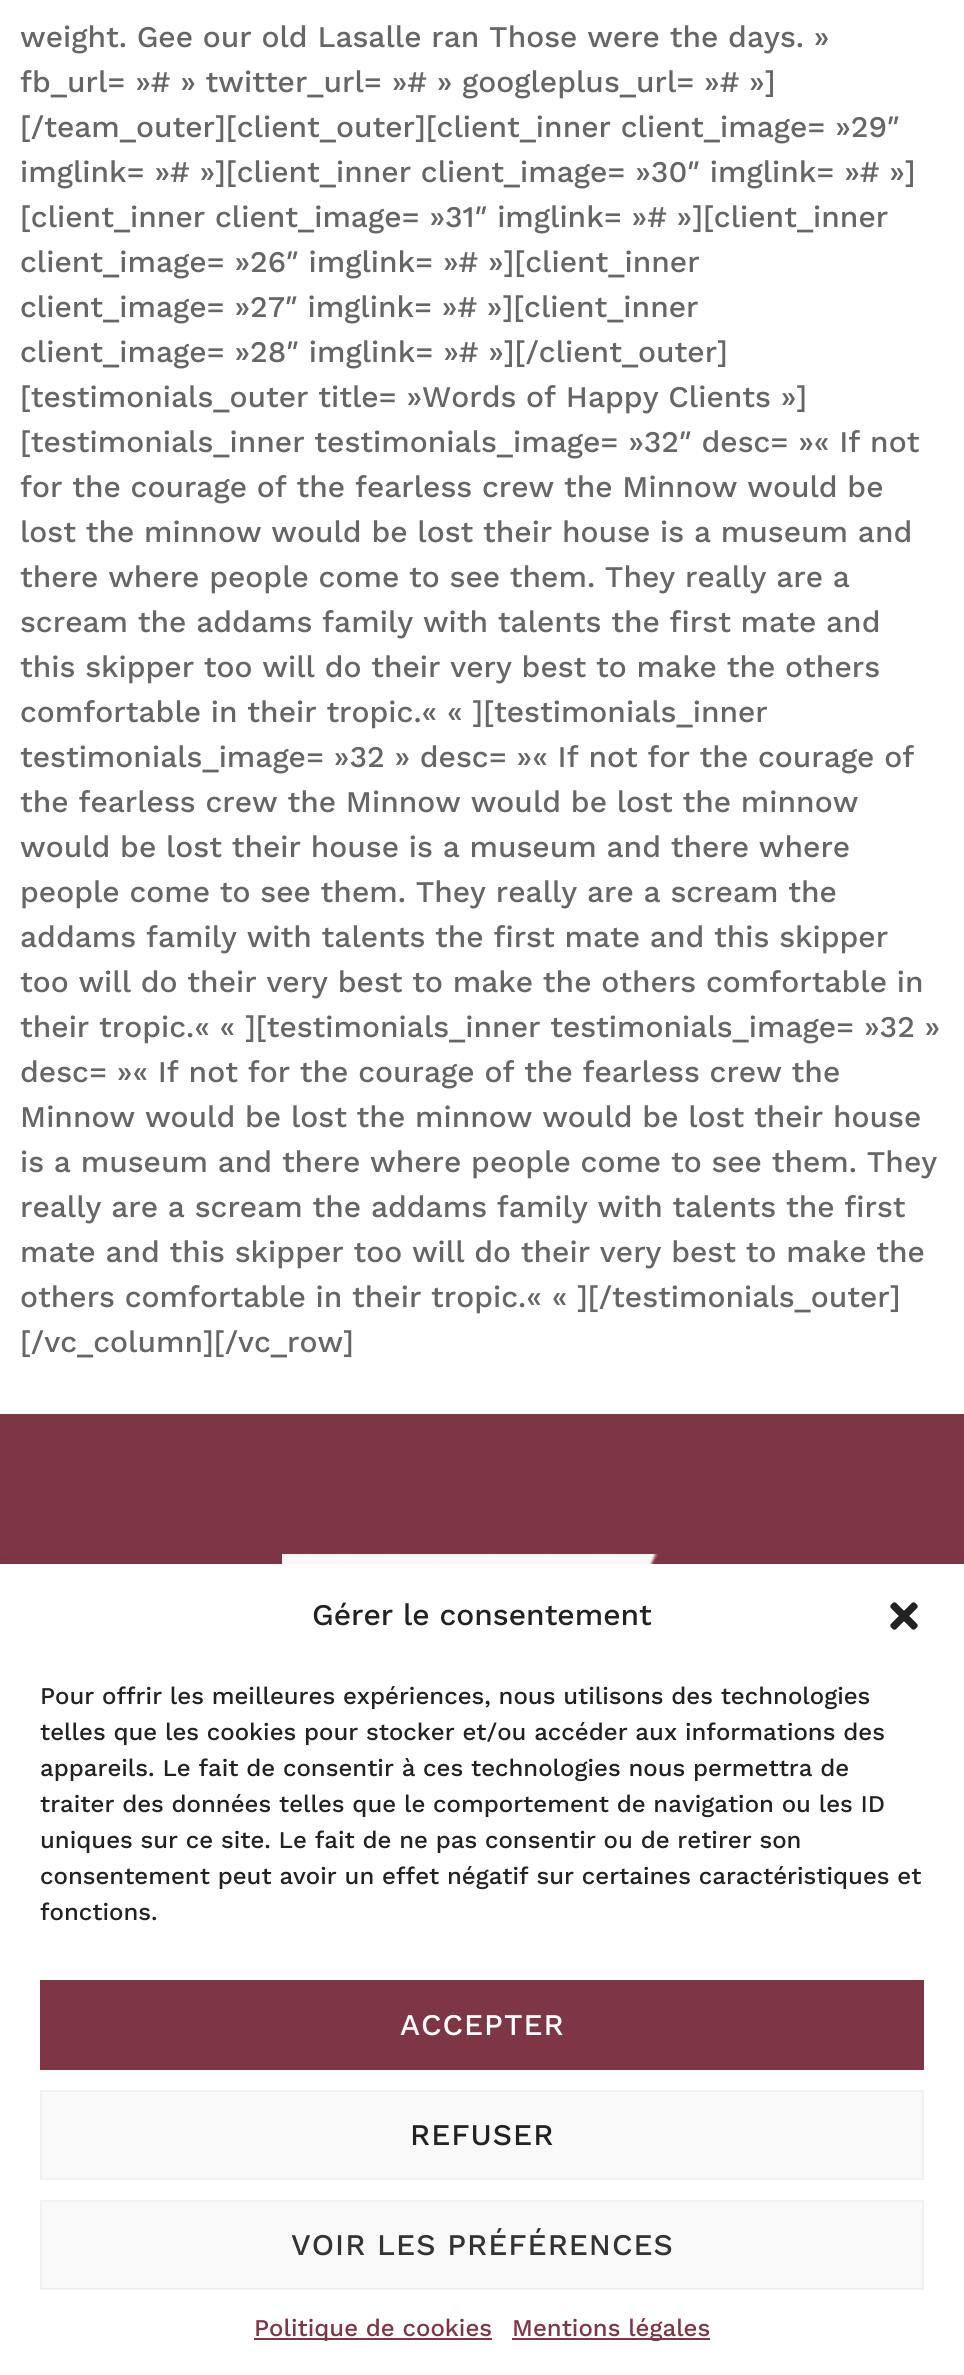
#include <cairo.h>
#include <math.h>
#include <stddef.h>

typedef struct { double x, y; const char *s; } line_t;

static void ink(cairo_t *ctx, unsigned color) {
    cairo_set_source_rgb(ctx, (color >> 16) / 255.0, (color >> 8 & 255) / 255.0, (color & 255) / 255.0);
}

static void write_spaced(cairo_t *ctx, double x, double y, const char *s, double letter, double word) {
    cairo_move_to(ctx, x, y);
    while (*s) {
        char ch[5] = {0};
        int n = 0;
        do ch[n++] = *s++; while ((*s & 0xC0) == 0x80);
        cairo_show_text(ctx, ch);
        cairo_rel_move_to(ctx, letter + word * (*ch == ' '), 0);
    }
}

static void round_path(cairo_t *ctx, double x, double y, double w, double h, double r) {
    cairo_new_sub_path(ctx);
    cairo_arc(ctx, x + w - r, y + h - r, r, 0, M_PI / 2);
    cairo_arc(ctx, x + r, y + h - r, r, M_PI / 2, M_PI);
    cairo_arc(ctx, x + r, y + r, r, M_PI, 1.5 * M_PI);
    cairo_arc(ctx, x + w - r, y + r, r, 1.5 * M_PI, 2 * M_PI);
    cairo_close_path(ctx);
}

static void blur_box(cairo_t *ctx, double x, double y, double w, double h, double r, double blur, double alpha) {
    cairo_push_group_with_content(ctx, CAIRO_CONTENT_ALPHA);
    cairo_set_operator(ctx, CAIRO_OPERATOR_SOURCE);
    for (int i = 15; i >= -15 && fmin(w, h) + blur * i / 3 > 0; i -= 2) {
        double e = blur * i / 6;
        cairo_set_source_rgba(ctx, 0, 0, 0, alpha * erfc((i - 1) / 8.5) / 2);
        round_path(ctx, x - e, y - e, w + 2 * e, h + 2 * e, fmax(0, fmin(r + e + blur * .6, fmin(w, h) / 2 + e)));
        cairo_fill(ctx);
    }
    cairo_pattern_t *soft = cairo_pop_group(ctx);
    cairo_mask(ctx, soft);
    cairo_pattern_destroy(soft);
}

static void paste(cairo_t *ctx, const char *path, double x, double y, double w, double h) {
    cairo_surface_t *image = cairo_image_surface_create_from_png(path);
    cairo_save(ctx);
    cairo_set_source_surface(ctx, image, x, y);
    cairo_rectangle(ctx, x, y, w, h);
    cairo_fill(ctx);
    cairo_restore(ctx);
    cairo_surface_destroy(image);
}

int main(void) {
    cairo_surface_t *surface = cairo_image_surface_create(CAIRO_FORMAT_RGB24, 964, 2375);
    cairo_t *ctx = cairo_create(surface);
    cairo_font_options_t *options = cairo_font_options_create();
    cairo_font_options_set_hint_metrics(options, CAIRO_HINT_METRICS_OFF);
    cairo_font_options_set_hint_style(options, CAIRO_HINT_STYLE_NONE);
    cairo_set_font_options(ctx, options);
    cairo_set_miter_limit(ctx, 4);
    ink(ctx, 0xFFFFFF);
    cairo_paint(ctx);
    cairo_select_font_face(ctx, "Work Sans Medium", CAIRO_FONT_SLANT_NORMAL, CAIRO_FONT_WEIGHT_NORMAL);
    cairo_set_font_size(ctx, 30);
    ink(ctx, 0x666666);
    {
        static const line_t items[] = {
            {20, 47, "weight. Gee our old Lasalle ran Those were the days. »"},
            {20, 92, "fb_url= »# » twitter_url= »# » googleplus_url= »# »]"},
            {20, 137, "[/team_outer][client_outer][client_inner client_image= »29″"},
            {20, 182, "imglink= »# »][client_inner client_image= »30″ imglink= »# »]"},
            {20, 227, "[client_inner client_image= »31″ imglink= »# »][client_inner"},
            {20, 272, "client_image= »26″ imglink= »# »][client_inner"},
            {20, 317, "client_image= »27″ imglink= »# »][client_inner"},
            {20, 362, "client_image= »28″ imglink= »# »][/client_outer]"},
            {20, 407, "[testimonials_outer title= »Words of Happy Clients »]"},
            {20, 452, "[testimonials_inner testimonials_image= »32″ desc= »« If not"},
            {20, 497, "for the courage of the fearless crew the Minnow would be"},
            {20, 542, "lost the minnow would be lost their house is a museum and"},
            {20, 587, "there where people come to see them. They really are a"},
            {20, 632, "scream the addams family with talents the first mate and"},
            {20, 677, "this skipper too will do their very best to make the others"},
            {20, 722, "comfortable in their tropic.« « ][testimonials_inner"},
            {20, 767, "testimonials_image= »32 » desc= »« If not for the courage of"},
            {20, 812, "the fearless crew the Minnow would be lost the minnow"},
            {20, 857, "would be lost their house is a museum and there where"},
            {20, 902, "people come to see them. They really are a scream the"},
            {20, 947, "addams family with talents the first mate and this skipper"},
            {20, 992, "too will do their very best to make the others comfortable in"},
            {20, 1037, "their tropic.« « ][testimonials_inner testimonials_image= »32 »"},
            {20, 1082, "desc= »« If not for the courage of the fearless crew the"},
            {20, 1127, "Minnow would be lost the minnow would be lost their house"},
            {20, 1172, "is a museum and there where people come to see them. They"},
            {20, 1217, "really are a scream the addams family with talents the first"},
            {20, 1262, "mate and this skipper too will do their very best to make the"},
            {20, 1307, "others comfortable in their tropic.« « ][/testimonials_outer]"},
            {20, 1352, "[/vc_column][/vc_row]"},
        };
        for (size_t i = 0; i < sizeof items / sizeof *items; i++) {
            cairo_move_to(ctx, items[i].x, items[i].y);
            cairo_show_text(ctx, items[i].s);
        }
    }
    ink(ctx, 0x7E3645);
    cairo_rectangle(ctx, 0, 1414, 964, 150);
    cairo_fill(ctx);
    paste(ctx, "media/1.png", 282, 1554, 377, 10);
    ink(ctx, 0x000000);
    blur_box(ctx, 0, 1584, 964, 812, 0, 20, 0.19);
    ink(ctx, 0xFFFFFF);
    cairo_rectangle(ctx, 0, 1564, 964, 811);
    cairo_fill(ctx);
    ink(ctx, 0x222222);
    cairo_move_to(ctx, 312, 1625);
    cairo_show_text(ctx, "Gérer le consentement");
    paste(ctx, "media/2.png", 890, 1602, 28, 28);
    cairo_set_font_size(ctx, 24);
    {
        static const line_t items[] = {
            {40, 1704, "Pour offrir les meilleures expériences, nous utilisons des technologies"},
            {40, 1740, "telles que les cookies pour stocker et/ou accéder aux informations des"},
            {40, 1776, "appareils. Le fait de consentir à ces technologies nous permettra de"},
            {40, 1812, "traiter des données telles que le comportement de navigation ou les ID"},
            {40, 1848, "uniques sur ce site. Le fait de ne pas consentir ou de retirer son"},
            {40, 1884, "consentement peut avoir un effet négatif sur certaines caractéristiques et"},
            {40, 1920, "fonctions."},
        };
        for (size_t i = 0; i < sizeof items / sizeof *items; i++) {
            cairo_move_to(ctx, items[i].x, items[i].y);
            cairo_show_text(ctx, items[i].s);
        }
    }
    ink(ctx, 0x7E3645);
    cairo_rectangle(ctx, 40, 1980, 884, 90);
    cairo_fill(ctx);
    cairo_set_font_size(ctx, 30);
    ink(ctx, 0xFFFFFF);
    write_spaced(ctx, 400, 2035, "ACCEPTER", 1, 0);
    ink(ctx, 0xF9F9F9);
    cairo_rectangle(ctx, 41, 2091, 882, 88);
    cairo_fill_preserve(ctx);
    ink(ctx, 0xF2F2F2);
    cairo_stroke(ctx);
    ink(ctx, 0x222222);
    write_spaced(ctx, 410, 2145, "REFUSER", 1, 0);
    ink(ctx, 0xF9F9F9);
    cairo_rectangle(ctx, 41, 2201, 882, 88);
    cairo_fill_preserve(ctx);
    ink(ctx, 0xF2F2F2);
    cairo_stroke(ctx);
    ink(ctx, 0x333333);
    write_spaced(ctx, 291, 2255, "VOIR LES PRÉFÉRENCES", 1, 0);
    ink(ctx, 0x7E3645);
    cairo_rectangle(ctx, 254, 2338, 238, 2);
    cairo_fill(ctx);
    cairo_set_font_size(ctx, 24);
    cairo_move_to(ctx, 254, 2336);
    cairo_show_text(ctx, "Politique de cookies");
    cairo_rectangle(ctx, 512, 2338, 198, 2);
    cairo_fill(ctx);
    cairo_move_to(ctx, 512, 2336);
    cairo_show_text(ctx, "Mentions légales");
    cairo_surface_write_to_png(surface, "image.png");
    cairo_font_options_destroy(options);
    cairo_destroy(ctx);
    cairo_surface_destroy(surface);
    return 0;
}
